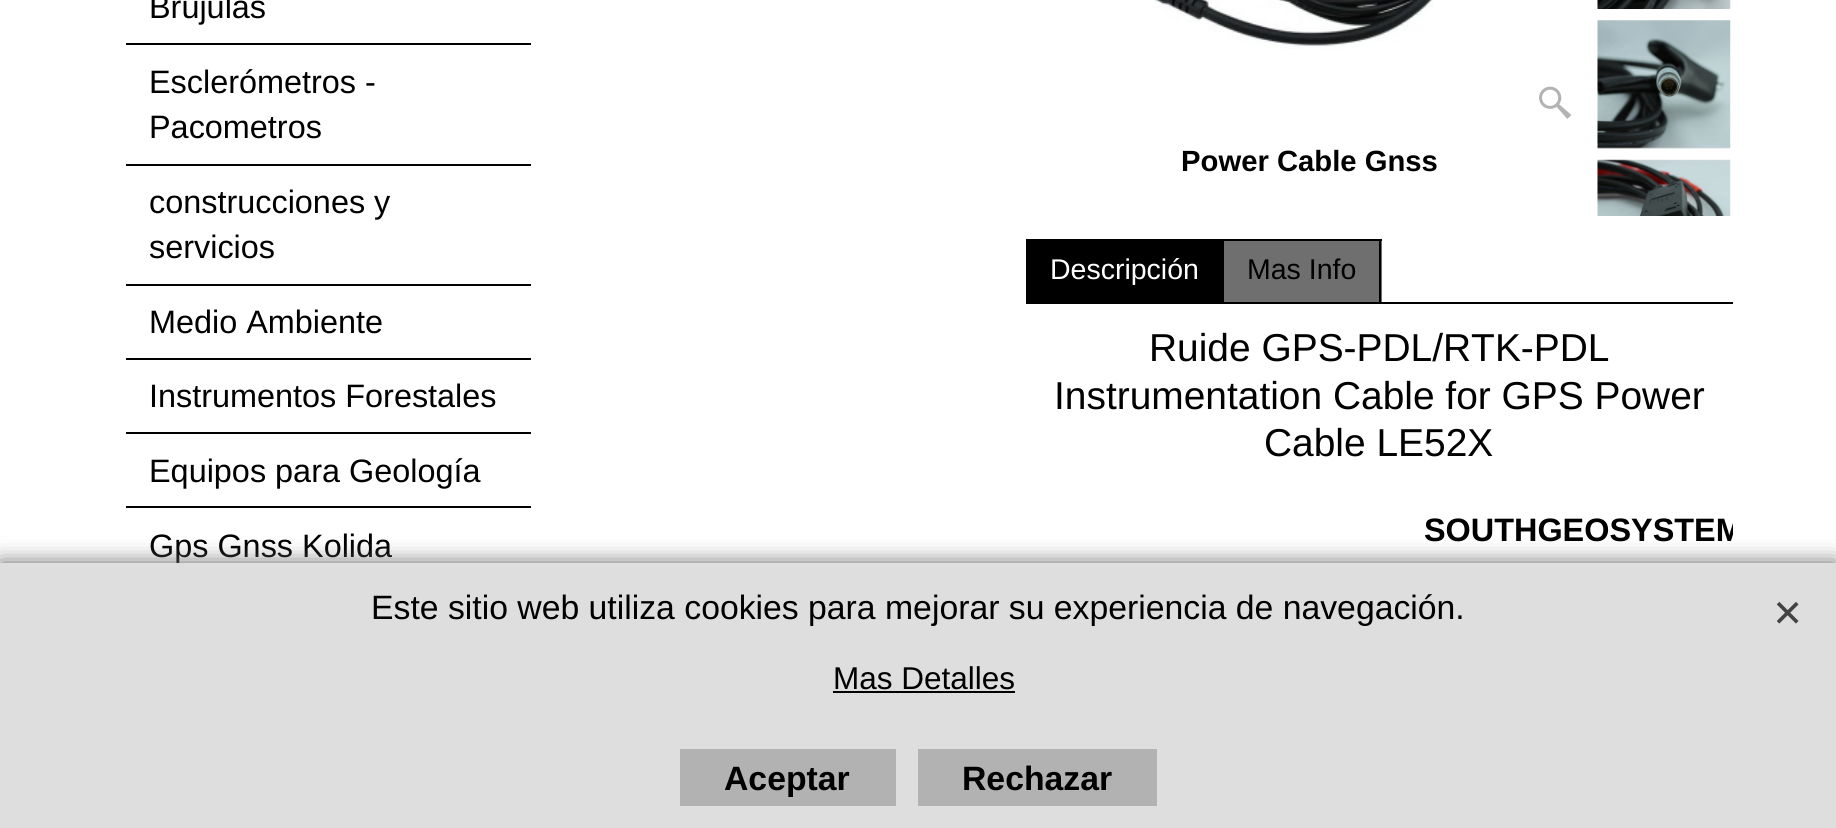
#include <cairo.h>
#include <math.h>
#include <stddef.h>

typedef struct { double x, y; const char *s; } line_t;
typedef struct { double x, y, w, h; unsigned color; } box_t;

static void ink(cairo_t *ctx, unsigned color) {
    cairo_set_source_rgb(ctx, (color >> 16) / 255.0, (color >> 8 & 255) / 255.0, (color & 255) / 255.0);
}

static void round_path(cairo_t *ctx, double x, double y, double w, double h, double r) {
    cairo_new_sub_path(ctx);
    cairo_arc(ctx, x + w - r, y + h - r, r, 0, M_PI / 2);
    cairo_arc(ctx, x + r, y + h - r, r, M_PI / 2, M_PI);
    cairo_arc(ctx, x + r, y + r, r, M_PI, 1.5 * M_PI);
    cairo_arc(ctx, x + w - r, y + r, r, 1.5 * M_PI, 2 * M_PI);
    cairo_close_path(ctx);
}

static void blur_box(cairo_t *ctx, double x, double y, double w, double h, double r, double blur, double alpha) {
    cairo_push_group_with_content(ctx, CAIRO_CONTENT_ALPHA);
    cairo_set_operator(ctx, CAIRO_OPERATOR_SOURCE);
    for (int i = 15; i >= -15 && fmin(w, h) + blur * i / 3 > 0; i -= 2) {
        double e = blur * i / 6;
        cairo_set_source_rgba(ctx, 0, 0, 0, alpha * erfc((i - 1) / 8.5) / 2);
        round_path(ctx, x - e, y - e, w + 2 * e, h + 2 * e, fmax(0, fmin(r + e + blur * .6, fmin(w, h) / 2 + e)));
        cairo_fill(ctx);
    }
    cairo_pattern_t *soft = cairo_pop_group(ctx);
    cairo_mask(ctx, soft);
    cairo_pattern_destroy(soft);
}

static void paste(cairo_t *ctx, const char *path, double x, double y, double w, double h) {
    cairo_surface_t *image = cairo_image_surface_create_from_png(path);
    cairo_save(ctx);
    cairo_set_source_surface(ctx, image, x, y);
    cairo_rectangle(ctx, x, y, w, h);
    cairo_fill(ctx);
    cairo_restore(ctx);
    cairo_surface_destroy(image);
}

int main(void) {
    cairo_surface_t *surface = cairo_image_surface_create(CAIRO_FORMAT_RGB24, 1836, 828);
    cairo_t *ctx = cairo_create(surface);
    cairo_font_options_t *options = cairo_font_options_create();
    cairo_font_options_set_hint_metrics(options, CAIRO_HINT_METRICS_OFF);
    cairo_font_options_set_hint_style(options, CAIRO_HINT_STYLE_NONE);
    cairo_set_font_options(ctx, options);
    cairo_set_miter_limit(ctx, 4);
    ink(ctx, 0xFFFFFF);
    cairo_paint(ctx);
    ink(ctx, 0x000000);
    cairo_rectangle(ctx, 126, 43, 405, 2);
    cairo_fill(ctx);
    cairo_select_font_face(ctx, "Liberation Sans", CAIRO_FONT_SLANT_NORMAL, CAIRO_FONT_WEIGHT_NORMAL);
    cairo_set_font_size(ctx, 32.4);
    cairo_move_to(ctx, 149, 18);
    cairo_show_text(ctx, "Brujulas");
    cairo_rectangle(ctx, 126, 164, 405, 2);
    cairo_fill(ctx);
    cairo_move_to(ctx, 149, 93);
    cairo_show_text(ctx, "Esclerómetros -");
    cairo_move_to(ctx, 149, 138);
    cairo_show_text(ctx, "Pacometros");
    cairo_rectangle(ctx, 126, 284, 405, 2);
    cairo_fill(ctx);
    cairo_move_to(ctx, 149, 213);
    cairo_show_text(ctx, "construcciones y");
    cairo_move_to(ctx, 149, 258);
    cairo_show_text(ctx, "servicios");
    cairo_rectangle(ctx, 126, 358, 405, 2);
    cairo_fill(ctx);
    cairo_move_to(ctx, 149, 333);
    cairo_show_text(ctx, "Medio Ambiente");
    cairo_rectangle(ctx, 126, 432, 405, 2);
    cairo_fill(ctx);
    cairo_move_to(ctx, 149, 407);
    cairo_show_text(ctx, "Instrumentos Forestales");
    cairo_rectangle(ctx, 126, 506, 405, 2);
    cairo_fill(ctx);
    cairo_move_to(ctx, 149, 482);
    cairo_show_text(ctx, "Equipos para Geología");
    cairo_move_to(ctx, 149, 557);
    cairo_show_text(ctx, "Gps Gnss Kolida");
    paste(ctx, "media/1.png", 1154, 0, 280, 49);
    paste(ctx, "media/2.png", 1539, 86, 33, 33);
    cairo_select_font_face(ctx, "Liberation Sans", CAIRO_FONT_SLANT_NORMAL, CAIRO_FONT_WEIGHT_BOLD);
    cairo_set_font_size(ctx, 29.25);
    cairo_move_to(ctx, 1181, 171);
    cairo_show_text(ctx, "Power Cable Gnss");
    paste(ctx, "media/3.png", 1597, 0, 134, 9);
    paste(ctx, "media/4.png", 1597, 20, 134, 129);
    paste(ctx, "media/5.png", 1597, 159, 134, 57);
    cairo_rectangle(ctx, 1026, 239, 196, 65);
    cairo_fill(ctx);
    cairo_select_font_face(ctx, "Liberation Sans", CAIRO_FONT_SLANT_NORMAL, CAIRO_FONT_WEIGHT_NORMAL);
    cairo_set_font_size(ctx, 28.5);
    ink(ctx, 0xFFFFFF);
    cairo_move_to(ctx, 1050, 279);
    cairo_show_text(ctx, "Descripción");
    {
        static const box_t items[] = {
            {1224, 241, 158, 61, 0x6F6F6F},
            {1222, 239, 160, 2, 0x000000},
            {1379, 239, 2, 63, 0x000000},
            {1222, 239, 2, 63, 0x000000},
        };
        for (size_t i = 0; i < sizeof items / sizeof *items; i++) {
            ink(ctx, items[i].color);
            cairo_rectangle(ctx, items[i].x, items[i].y, items[i].w, items[i].h);
            cairo_fill(ctx);
        }
    }
    cairo_move_to(ctx, 1247, 279);
    cairo_show_text(ctx, "Mas Info");
    cairo_rectangle(ctx, 1222, 302, 511, 2);
    cairo_fill(ctx);
    cairo_set_font_size(ctx, 38.9);
    {
        static const line_t items[] = {
            {1149, 361, "Ruide GPS-PDL/RTK-PDL"},
            {1054, 409, "Instrumentation Cable for GPS Power"},
            {1264, 456, "Cable LE52X"},
        };
        for (size_t i = 0; i < sizeof items / sizeof *items; i++) {
            cairo_move_to(ctx, items[i].x, items[i].y);
            cairo_show_text(ctx, items[i].s);
        }
    }
    cairo_save(ctx);
    cairo_rectangle(ctx, 1026, 304, 707, 479);
    cairo_clip(ctx);
    cairo_select_font_face(ctx, "Liberation Sans", CAIRO_FONT_SLANT_NORMAL, CAIRO_FONT_WEIGHT_BOLD);
    cairo_set_font_size(ctx, 32.4);
    cairo_move_to(ctx, 1424, 541);
    cairo_show_text(ctx, "SOUTHGEOSYSTEM");
    cairo_restore(ctx);
    ink(ctx, 0x666666);
    blur_box(ctx, 0, 563, 1836, 265, 0, 11, 1);
    ink(ctx, 0xDEDEDE);
    cairo_rectangle(ctx, 0, 563, 1836, 265);
    cairo_fill(ctx);
    cairo_set_font_size(ctx, 33.75);
    ink(ctx, 0x000000);
    cairo_move_to(ctx, 371, 619);
    cairo_show_text(ctx, "Este sitio web utiliza cookies para mejorar su experiencia de navegación.");
    cairo_set_font_size(ctx, 31.5);
    cairo_move_to(ctx, 833, 689);
    cairo_show_text(ctx, "Mas Detalles");
    cairo_rectangle(ctx, 833, 691, 182, 2);
    cairo_fill(ctx);
    paste(ctx, "media/6.png", 1776, 601, 23, 23);
    ink(ctx, 0xB2B2B2);
    cairo_rectangle(ctx, 680, 749, 216, 57);
    cairo_fill(ctx);
    cairo_select_font_face(ctx, "Liberation Sans", CAIRO_FONT_SLANT_NORMAL, CAIRO_FONT_WEIGHT_BOLD);
    cairo_set_font_size(ctx, 33.75);
    ink(ctx, 0x000000);
    cairo_move_to(ctx, 724, 790);
    cairo_show_text(ctx, "Aceptar");
    ink(ctx, 0xB2B2B2);
    cairo_rectangle(ctx, 918, 749, 239, 57);
    cairo_fill(ctx);
    ink(ctx, 0x000000);
    cairo_move_to(ctx, 962, 790);
    cairo_show_text(ctx, "Rechazar");
    cairo_surface_write_to_png(surface, "image.png");
    cairo_font_options_destroy(options);
    cairo_destroy(ctx);
    cairo_surface_destroy(surface);
    return 0;
}
